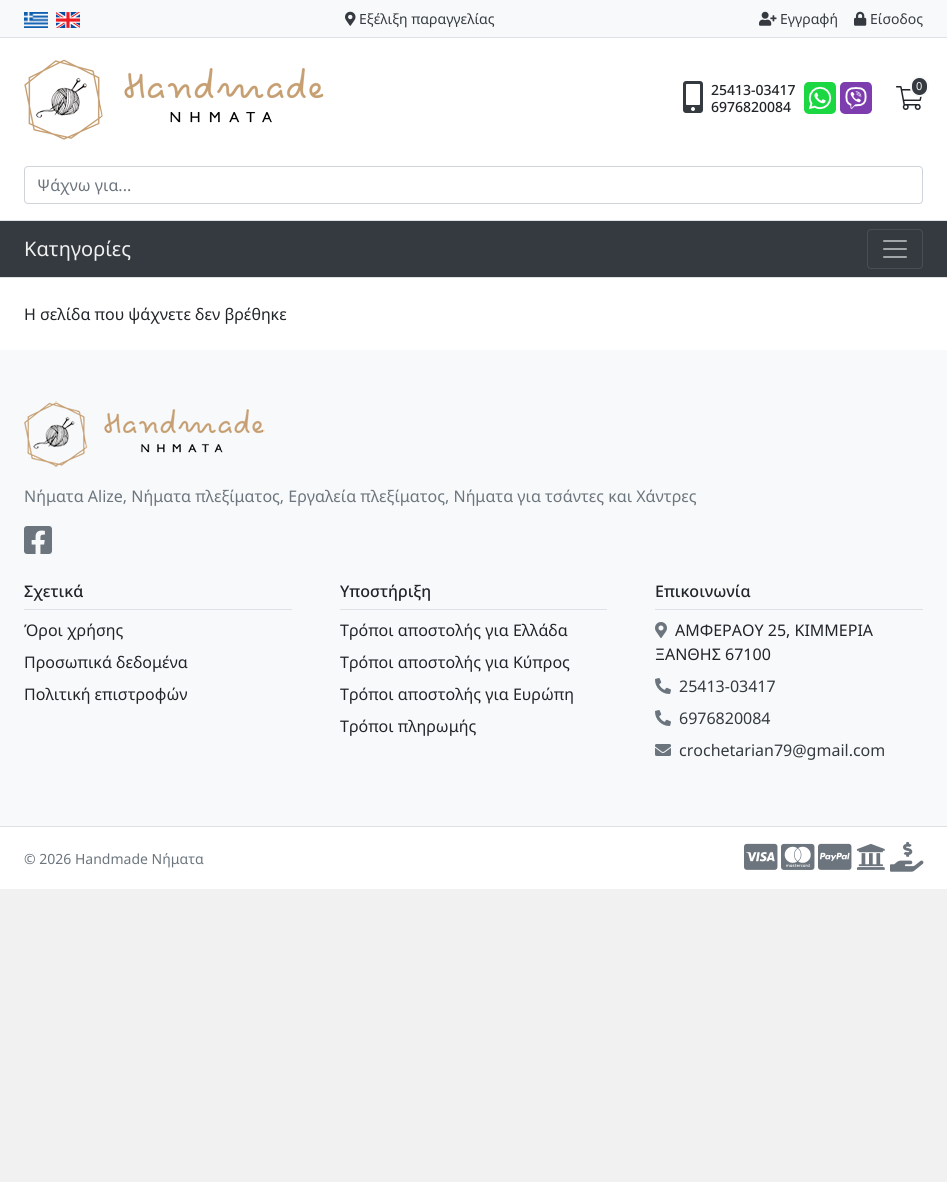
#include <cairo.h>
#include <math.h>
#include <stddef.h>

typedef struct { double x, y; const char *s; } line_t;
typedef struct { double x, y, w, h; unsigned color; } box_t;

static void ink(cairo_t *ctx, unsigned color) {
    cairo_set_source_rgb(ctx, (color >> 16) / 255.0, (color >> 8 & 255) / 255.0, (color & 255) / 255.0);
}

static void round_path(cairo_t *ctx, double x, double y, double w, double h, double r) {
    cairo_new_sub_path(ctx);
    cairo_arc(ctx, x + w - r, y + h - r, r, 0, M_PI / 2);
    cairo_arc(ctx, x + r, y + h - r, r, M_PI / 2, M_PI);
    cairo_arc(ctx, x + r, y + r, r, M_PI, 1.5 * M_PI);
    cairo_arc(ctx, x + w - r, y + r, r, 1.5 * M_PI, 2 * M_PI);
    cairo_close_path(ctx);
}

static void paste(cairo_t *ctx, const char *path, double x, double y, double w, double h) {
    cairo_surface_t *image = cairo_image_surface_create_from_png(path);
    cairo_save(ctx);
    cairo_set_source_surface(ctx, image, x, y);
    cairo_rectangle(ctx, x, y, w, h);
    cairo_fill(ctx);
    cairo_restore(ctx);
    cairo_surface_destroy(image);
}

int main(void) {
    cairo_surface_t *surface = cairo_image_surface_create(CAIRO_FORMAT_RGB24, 947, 1182);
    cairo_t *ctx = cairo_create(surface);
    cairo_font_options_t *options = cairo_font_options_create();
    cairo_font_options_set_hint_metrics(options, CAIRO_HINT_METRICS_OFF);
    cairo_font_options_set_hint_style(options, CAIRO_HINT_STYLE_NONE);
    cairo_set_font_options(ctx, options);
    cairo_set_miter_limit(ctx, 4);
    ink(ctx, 0xF1F1F1);
    cairo_paint(ctx);
    ink(ctx, 0xF8F9FA);
    cairo_rectangle(ctx, 0, 0, 947, 37);
    cairo_fill(ctx);
    ink(ctx, 0xDEE2E6);
    cairo_rectangle(ctx, 0, 37, 947, 1);
    cairo_fill(ctx);
    paste(ctx, "media/1.png", 24, 12, 24, 16);
    paste(ctx, "media/2.png", 56, 12, 24, 16);
    paste(ctx, "media/3.png", 345, 11, 11, 15);
    cairo_select_font_face(ctx, "Noto Sans", CAIRO_FONT_SLANT_NORMAL, CAIRO_FONT_WEIGHT_NORMAL);
    cairo_set_font_size(ctx, 14);
    ink(ctx, 0x343A40);
    cairo_move_to(ctx, 359, 24);
    cairo_show_text(ctx, "Εξέλιξη παραγγελίας");
    paste(ctx, "media/4.png", 759, 11, 18, 15);
    cairo_move_to(ctx, 780, 24);
    cairo_show_text(ctx, "Εγγραφή");
    paste(ctx, "media/5.png", 854, 11, 13, 15);
    cairo_move_to(ctx, 870, 24);
    cairo_show_text(ctx, "Είσοδος");
    ink(ctx, 0xFFFFFF);
    cairo_rectangle(ctx, 0, 38, 947, 182);
    cairo_fill(ctx);
    paste(ctx, "media/6.png", 24, 59, 300, 81);
    paste(ctx, "media/7.png", 683, 81, 20, 32);
    cairo_select_font_face(ctx, "Noto Sans Medium", CAIRO_FONT_SLANT_NORMAL, CAIRO_FONT_WEIGHT_NORMAL);
    ink(ctx, 0x212529);
    cairo_move_to(ctx, 711, 95);
    cairo_show_text(ctx, "25413-03417");
    cairo_move_to(ctx, 711, 112);
    cairo_show_text(ctx, "6976820084");
    paste(ctx, "media/8.png", 804, 82, 32, 32);
    paste(ctx, "media/9.png", 840, 82, 32, 32);
    paste(ctx, "media/10.png", 896, 86, 26, 24);
    ink(ctx, 0x343A40);
    round_path(ctx, 911, 77, 17, 19, 8.5);
    cairo_fill_preserve(ctx);
    ink(ctx, 0xF8F9FA);
    cairo_stroke(ctx);
    cairo_select_font_face(ctx, "Noto Sans", CAIRO_FONT_SLANT_NORMAL, CAIRO_FONT_WEIGHT_NORMAL);
    cairo_set_font_size(ctx, 11);
    cairo_move_to(ctx, 916, 90);
    cairo_show_text(ctx, "0");
    round_path(ctx, 24.5, 166.5, 898, 37, 3.5);
    ink(ctx, 0xCED4DA);
    cairo_set_line_width(ctx, 1);
    cairo_stroke(ctx);
    cairo_set_font_size(ctx, 16);
    ink(ctx, 0x6C757D);
    cairo_move_to(ctx, 37, 191);
    cairo_show_text(ctx, "Ψάχνω για...");
    {
        static const box_t items[] = {
            {0, 221, 947, 56, 0x343A40},
            {0, 220, 947, 1, 0xDEE2E6},
            {0, 277, 947, 1, 0xDEE2E6},
        };
        for (size_t i = 0; i < sizeof items / sizeof *items; i++) {
            ink(ctx, items[i].color);
            cairo_rectangle(ctx, items[i].x, items[i].y, items[i].w, items[i].h);
            cairo_fill(ctx);
        }
    }
    cairo_set_font_size(ctx, 20);
    ink(ctx, 0xF1F1F1);
    cairo_move_to(ctx, 24, 256);
    cairo_show_text(ctx, "Κατηγορίες");
    round_path(ctx, 867.5, 229.5, 55, 39, 3.5);
    ink(ctx, 0x484E53);
    cairo_stroke(ctx);
    paste(ctx, "media/11.png", 883, 240, 24, 18);
    ink(ctx, 0xFFFFFF);
    cairo_rectangle(ctx, 0, 278, 947, 72);
    cairo_fill(ctx);
    cairo_set_font_size(ctx, 16);
    ink(ctx, 0x212529);
    cairo_move_to(ctx, 24, 320);
    cairo_show_text(ctx, "Η σελίδα που ψάχνετε δεν βρέθηκε");
    ink(ctx, 0xF8F9FA);
    cairo_rectangle(ctx, 0, 350, 947, 476);
    cairo_fill(ctx);
    paste(ctx, "media/12.png", 24, 401, 241, 66);
    ink(ctx, 0x6C757D);
    cairo_move_to(ctx, 24, 502);
    cairo_show_text(ctx, "Νήματα Alize, Νήματα πλεξίματος, Εργαλεία πλεξίματος, Νήματα για τσάντες και Χάντρες");
    paste(ctx, "media/13.png", 24, 526, 28, 28);
    ink(ctx, 0xDEE2E6);
    cairo_rectangle(ctx, 24, 609, 268, 1);
    cairo_fill(ctx);
    cairo_select_font_face(ctx, "Noto Sans Medium", CAIRO_FONT_SLANT_NORMAL, CAIRO_FONT_WEIGHT_NORMAL);
    ink(ctx, 0x212529);
    cairo_move_to(ctx, 24, 597);
    cairo_show_text(ctx, "Σχετικά");
    cairo_select_font_face(ctx, "Noto Sans", CAIRO_FONT_SLANT_NORMAL, CAIRO_FONT_WEIGHT_NORMAL);
    {
        static const line_t items[] = {
            {24, 636, "Όροι χρήσης"},
            {24, 668, "Προσωπικά δεδομένα"},
            {24, 700, "Πολιτική επιστροφών"},
        };
        for (size_t i = 0; i < sizeof items / sizeof *items; i++) {
            cairo_move_to(ctx, items[i].x, items[i].y);
            cairo_show_text(ctx, items[i].s);
        }
    }
    ink(ctx, 0xDEE2E6);
    cairo_rectangle(ctx, 340, 609, 267, 1);
    cairo_fill(ctx);
    cairo_select_font_face(ctx, "Noto Sans Medium", CAIRO_FONT_SLANT_NORMAL, CAIRO_FONT_WEIGHT_NORMAL);
    ink(ctx, 0x212529);
    cairo_move_to(ctx, 340, 597);
    cairo_show_text(ctx, "Υποστήριξη");
    cairo_select_font_face(ctx, "Noto Sans", CAIRO_FONT_SLANT_NORMAL, CAIRO_FONT_WEIGHT_NORMAL);
    {
        static const line_t items[] = {
            {340, 636, "Τρόποι αποστολής για Ελλάδα"},
            {340, 668, "Τρόποι αποστολής για Κύπρος"},
            {340, 700, "Τρόποι αποστολής για Ευρώπη"},
            {340, 732, "Τρόποι πληρωμής"},
        };
        for (size_t i = 0; i < sizeof items / sizeof *items; i++) {
            cairo_move_to(ctx, items[i].x, items[i].y);
            cairo_show_text(ctx, items[i].s);
        }
    }
    ink(ctx, 0xDEE2E6);
    cairo_rectangle(ctx, 655, 609, 268, 1);
    cairo_fill(ctx);
    cairo_select_font_face(ctx, "Noto Sans Medium", CAIRO_FONT_SLANT_NORMAL, CAIRO_FONT_WEIGHT_NORMAL);
    ink(ctx, 0x212529);
    cairo_move_to(ctx, 655, 597);
    cairo_show_text(ctx, "Επικοινωνία");
    paste(ctx, "media/14.png", 655, 622, 12, 16);
    cairo_select_font_face(ctx, "Noto Sans", CAIRO_FONT_SLANT_NORMAL, CAIRO_FONT_WEIGHT_NORMAL);
    cairo_move_to(ctx, 675, 636);
    cairo_show_text(ctx, "ΑΜΦΕΡΑΟΥ 25, ΚΙΜΜΕΡΙΑ");
    cairo_move_to(ctx, 655, 660);
    cairo_show_text(ctx, "ΞΑΝΘΗΣ 67100");
    paste(ctx, "media/15.png", 655, 678, 16, 16);
    ink(ctx, 0x343A40);
    cairo_move_to(ctx, 679, 692);
    cairo_show_text(ctx, "25413-03417");
    paste(ctx, "media/15.png", 655, 710, 16, 16);
    cairo_move_to(ctx, 679, 724);
    cairo_show_text(ctx, "6976820084");
    paste(ctx, "media/16.png", 655, 744, 16, 12);
    cairo_move_to(ctx, 679, 756);
    cairo_show_text(ctx, "crochetarian79@gmail.com");
    ink(ctx, 0xFFFFFF);
    cairo_rectangle(ctx, 0, 827, 947, 62);
    cairo_fill(ctx);
    ink(ctx, 0xDEE2E6);
    cairo_rectangle(ctx, 0, 826, 947, 1);
    cairo_fill(ctx);
    cairo_set_font_size(ctx, 14);
    ink(ctx, 0x6C757D);
    cairo_move_to(ctx, 24, 864);
    cairo_show_text(ctx, "© 2026 Handmade Νήματα");
    paste(ctx, "media/17.png", 744, 843, 34, 27);
    paste(ctx, "media/18.png", 781, 843, 34, 27);
    paste(ctx, "media/19.png", 818, 843, 34, 27);
    paste(ctx, "media/20.png", 856, 843, 29, 27);
    paste(ctx, "media/21.png", 890, 842, 34, 30);
    cairo_surface_write_to_png(surface, "image.png");
    cairo_font_options_destroy(options);
    cairo_destroy(ctx);
    cairo_surface_destroy(surface);
    return 0;
}
